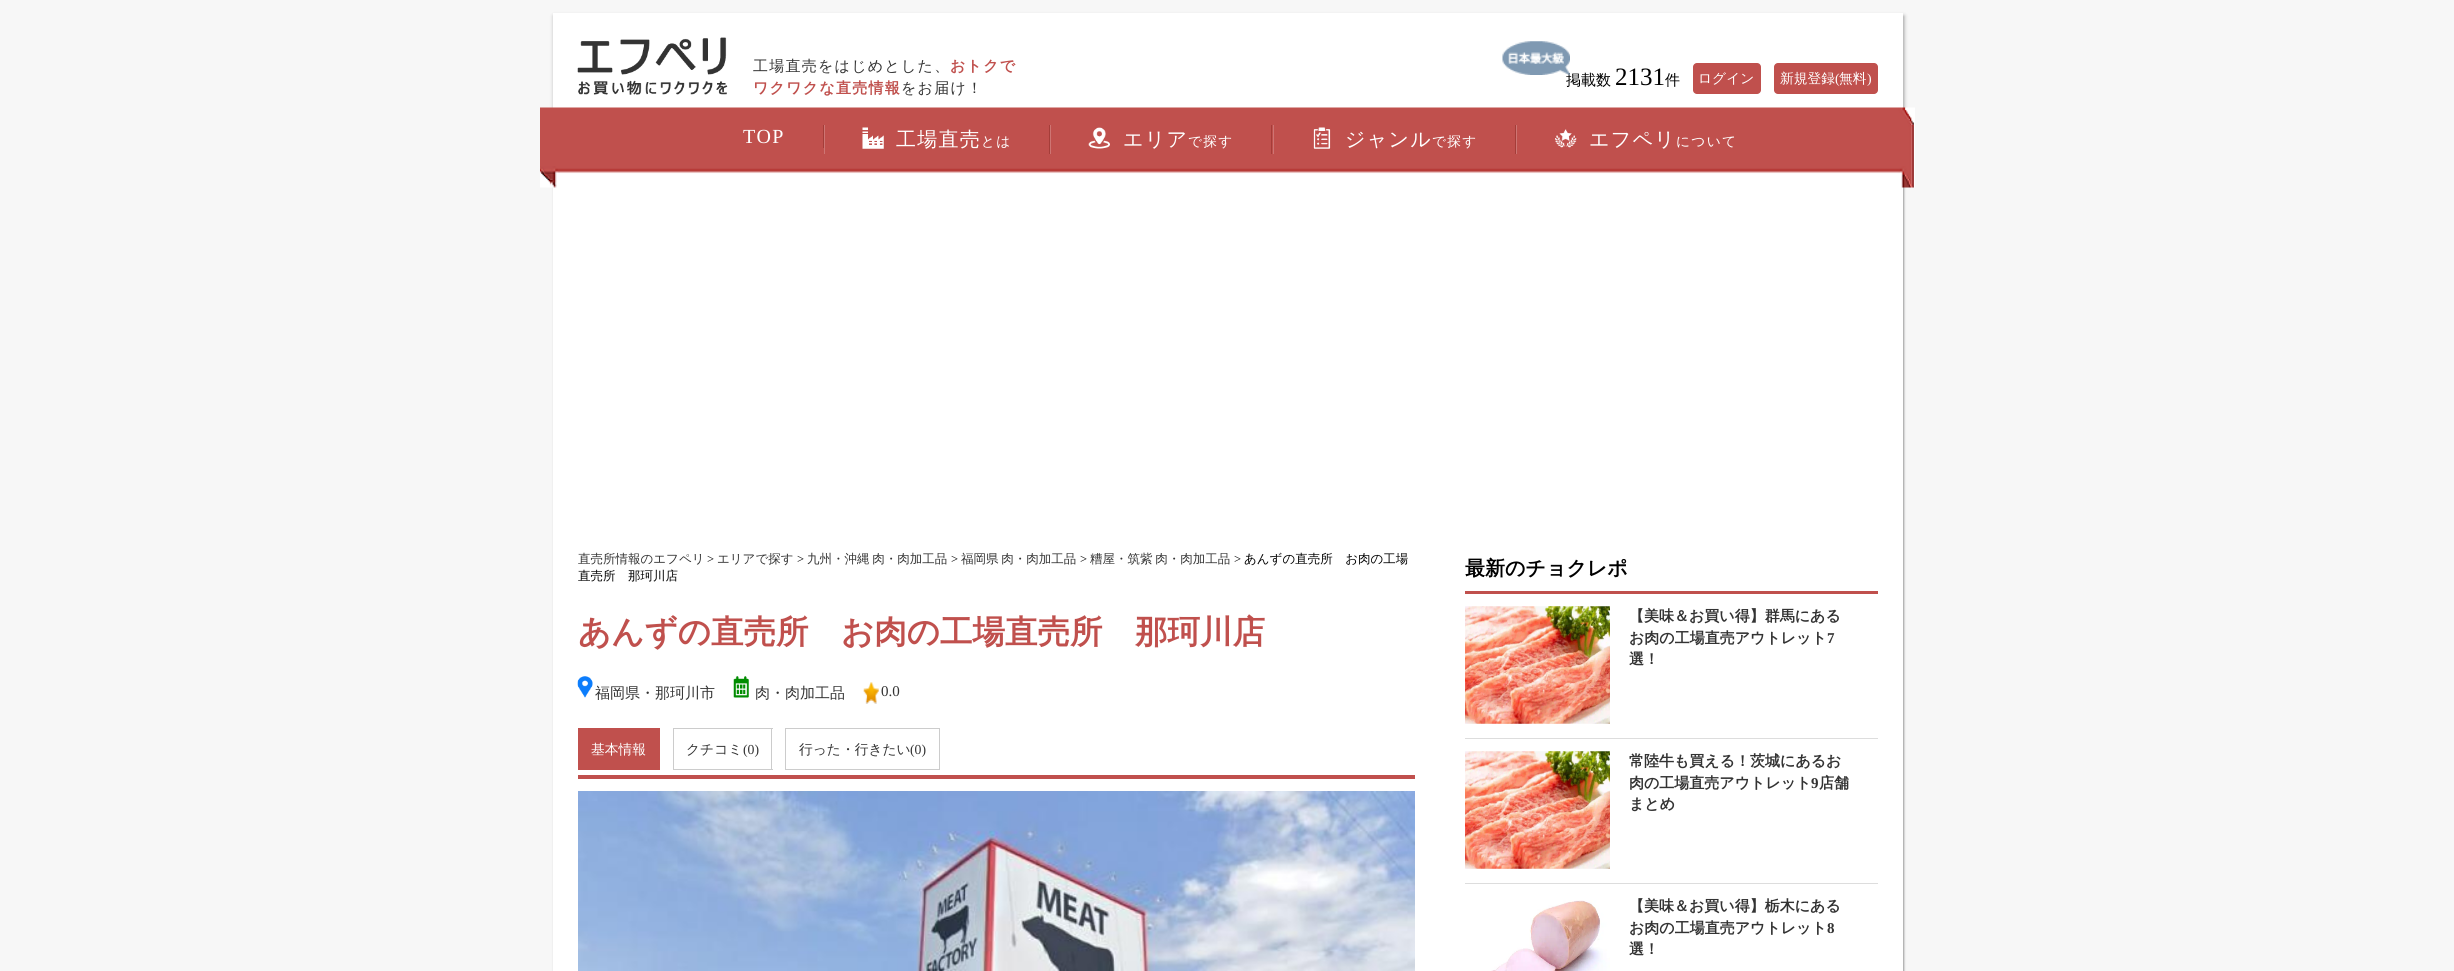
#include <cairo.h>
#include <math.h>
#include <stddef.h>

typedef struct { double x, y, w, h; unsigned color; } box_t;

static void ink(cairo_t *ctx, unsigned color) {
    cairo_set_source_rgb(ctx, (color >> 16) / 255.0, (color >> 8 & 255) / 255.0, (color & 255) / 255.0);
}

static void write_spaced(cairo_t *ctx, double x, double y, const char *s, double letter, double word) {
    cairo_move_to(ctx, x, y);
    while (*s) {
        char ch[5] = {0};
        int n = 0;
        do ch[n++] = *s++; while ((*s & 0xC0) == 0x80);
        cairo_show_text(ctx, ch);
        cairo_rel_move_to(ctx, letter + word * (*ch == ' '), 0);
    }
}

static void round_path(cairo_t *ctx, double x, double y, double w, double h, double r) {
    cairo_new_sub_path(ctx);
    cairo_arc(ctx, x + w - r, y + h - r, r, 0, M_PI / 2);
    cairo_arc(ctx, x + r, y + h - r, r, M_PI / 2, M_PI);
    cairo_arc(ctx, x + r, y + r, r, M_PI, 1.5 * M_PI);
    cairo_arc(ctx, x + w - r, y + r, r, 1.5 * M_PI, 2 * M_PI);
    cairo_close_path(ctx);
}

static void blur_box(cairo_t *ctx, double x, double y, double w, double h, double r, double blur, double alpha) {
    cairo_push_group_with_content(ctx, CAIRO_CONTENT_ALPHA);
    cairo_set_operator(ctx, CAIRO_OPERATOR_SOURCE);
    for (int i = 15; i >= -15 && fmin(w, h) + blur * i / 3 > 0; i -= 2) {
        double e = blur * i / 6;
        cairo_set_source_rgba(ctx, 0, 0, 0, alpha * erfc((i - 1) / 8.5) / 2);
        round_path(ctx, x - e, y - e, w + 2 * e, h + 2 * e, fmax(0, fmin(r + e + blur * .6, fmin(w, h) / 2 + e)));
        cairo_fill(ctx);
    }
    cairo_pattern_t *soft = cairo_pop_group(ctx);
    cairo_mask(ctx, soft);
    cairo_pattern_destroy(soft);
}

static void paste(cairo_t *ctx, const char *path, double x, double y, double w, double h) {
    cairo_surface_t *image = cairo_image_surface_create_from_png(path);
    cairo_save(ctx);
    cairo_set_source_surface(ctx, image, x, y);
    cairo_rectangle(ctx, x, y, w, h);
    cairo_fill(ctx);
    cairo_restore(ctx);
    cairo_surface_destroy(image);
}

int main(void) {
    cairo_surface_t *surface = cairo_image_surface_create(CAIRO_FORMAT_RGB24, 2454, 971);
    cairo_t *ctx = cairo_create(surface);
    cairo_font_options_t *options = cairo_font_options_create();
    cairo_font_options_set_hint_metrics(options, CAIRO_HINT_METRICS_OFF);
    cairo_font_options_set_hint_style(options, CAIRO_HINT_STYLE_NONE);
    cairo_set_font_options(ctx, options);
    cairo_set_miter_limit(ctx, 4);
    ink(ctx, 0xF7F7F7);
    cairo_paint(ctx);
    ink(ctx, 0x999999);
    blur_box(ctx, 554, 16, 1350, 120, 0, 2, 1);
    ink(ctx, 0xFFFFFF);
    cairo_rectangle(ctx, 553, 13, 1350, 95);
    cairo_fill(ctx);
    paste(ctx, "media/1.png", 577, 37, 151, 58);
    cairo_select_font_face(ctx, "WenQuanYi Zen Hei Medium", CAIRO_FONT_SLANT_NORMAL, CAIRO_FONT_WEIGHT_NORMAL);
    cairo_set_font_size(ctx, 15);
    ink(ctx, 0x333333);
    write_spaced(ctx, 753, 71, "工場直売をはじめとした、", 1.25, 0);
    cairo_select_font_face(ctx, "WenQuanYi Zen Hei", CAIRO_FONT_SLANT_NORMAL, CAIRO_FONT_WEIGHT_BOLD);
    ink(ctx, 0xC0504D);
    write_spaced(ctx, 950, 71, "おトクで", 1.25, 0);
    write_spaced(ctx, 753, 93, "ワクワクな直売情報", 1.25, 0);
    cairo_select_font_face(ctx, "WenQuanYi Zen Hei Medium", CAIRO_FONT_SLANT_NORMAL, CAIRO_FONT_WEIGHT_NORMAL);
    ink(ctx, 0x333333);
    write_spaced(ctx, 901, 93, "をお届け！", 1.25, 0);
    ink(ctx, 0x000000);
    cairo_move_to(ctx, 1566, 85);
    cairo_show_text(ctx, "掲載数");
    paste(ctx, "media/2.png", 1502, 41, 68, 34);
    cairo_select_font_face(ctx, "Liberation Serif", CAIRO_FONT_SLANT_NORMAL, CAIRO_FONT_WEIGHT_NORMAL);
    cairo_set_font_size(ctx, 25);
    cairo_move_to(ctx, 1615, 85);
    cairo_show_text(ctx, "2131");
    cairo_select_font_face(ctx, "WenQuanYi Zen Hei Medium", CAIRO_FONT_SLANT_NORMAL, CAIRO_FONT_WEIGHT_NORMAL);
    cairo_set_font_size(ctx, 15);
    cairo_move_to(ctx, 1665, 85);
    cairo_show_text(ctx, "件");
    ink(ctx, 0xC0504D);
    round_path(ctx, 1693, 63, 68, 31, 4);
    cairo_fill(ctx);
    cairo_set_font_size(ctx, 13.75);
    ink(ctx, 0xFFFFFF);
    cairo_move_to(ctx, 1698, 83);
    cairo_show_text(ctx, "ログイン");
    ink(ctx, 0xC0504D);
    round_path(ctx, 1774, 63, 104, 31, 4);
    cairo_fill(ctx);
    ink(ctx, 0xFFFFFF);
    cairo_move_to(ctx, 1780, 83);
    cairo_show_text(ctx, "新規登録");
    cairo_select_font_face(ctx, "Liberation Serif", CAIRO_FONT_SLANT_NORMAL, CAIRO_FONT_WEIGHT_NORMAL);
    cairo_move_to(ctx, 1835, 83);
    cairo_show_text(ctx, "(");
    cairo_select_font_face(ctx, "WenQuanYi Zen Hei Medium", CAIRO_FONT_SLANT_NORMAL, CAIRO_FONT_WEIGHT_NORMAL);
    cairo_move_to(ctx, 1839, 83);
    cairo_show_text(ctx, "無料");
    cairo_select_font_face(ctx, "Liberation Serif", CAIRO_FONT_SLANT_NORMAL, CAIRO_FONT_WEIGHT_NORMAL);
    cairo_move_to(ctx, 1867, 83);
    cairo_show_text(ctx, ")");
    ink(ctx, 0x999999);
    blur_box(ctx, 554, 176, 1350, 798, 0, 1, 1);
    ink(ctx, 0xFFFFFF);
    cairo_rectangle(ctx, 553, 187, 1350, 784);
    cairo_fill(ctx);
    paste(ctx, "media/3.png", 540, 107, 1375, 81);
    ink(ctx, 0xA43D39);
    cairo_rectangle(ctx, 823, 125, 1, 23);
    cairo_fill(ctx);
    cairo_set_font_size(ctx, 20);
    ink(ctx, 0xFFFFFF);
    write_spaced(ctx, 743, 143, "TOP", 1.25, 0);
    ink(ctx, 0xA43D39);
    cairo_rectangle(ctx, 1049, 125, 1, 29);
    cairo_fill(ctx);
    ink(ctx, 0xCE7573);
    cairo_rectangle(ctx, 824, 125, 1, 29);
    cairo_fill(ctx);
    paste(ctx, "media/4.png", 862, 127, 22, 22);
    cairo_select_font_face(ctx, "WenQuanYi Zen Hei Medium", CAIRO_FONT_SLANT_NORMAL, CAIRO_FONT_WEIGHT_NORMAL);
    ink(ctx, 0xFFFFFF);
    write_spaced(ctx, 896, 146, "工場直売", 1.25, 0);
    cairo_set_font_size(ctx, 13.75);
    write_spaced(ctx, 981, 146, "とは", 1.25, 0);
    ink(ctx, 0xA43D39);
    cairo_rectangle(ctx, 1271, 125, 1, 29);
    cairo_fill(ctx);
    ink(ctx, 0xCE7573);
    cairo_rectangle(ctx, 1050, 125, 1, 29);
    cairo_fill(ctx);
    paste(ctx, "media/5.png", 1088, 127, 22, 22);
    cairo_set_font_size(ctx, 20);
    ink(ctx, 0xFFFFFF);
    write_spaced(ctx, 1123, 146, "エリア", 1.25, 0);
    cairo_set_font_size(ctx, 13.75);
    write_spaced(ctx, 1188, 146, "で探す", 1.25, 0);
    ink(ctx, 0xA43D39);
    cairo_rectangle(ctx, 1515, 125, 1, 29);
    cairo_fill(ctx);
    ink(ctx, 0xCE7573);
    cairo_rectangle(ctx, 1273, 125, 1, 29);
    cairo_fill(ctx);
    paste(ctx, "media/6.png", 1313, 127, 18, 22);
    cairo_set_font_size(ctx, 20);
    ink(ctx, 0xFFFFFF);
    write_spaced(ctx, 1345, 146, "ジャンル", 1.25, 0);
    cairo_set_font_size(ctx, 13.75);
    write_spaced(ctx, 1432, 146, "で探す", 1.25, 0);
    ink(ctx, 0xCE7573);
    cairo_rectangle(ctx, 1516, 125, 1, 29);
    cairo_fill(ctx);
    paste(ctx, "media/7.png", 1555, 129, 22, 19);
    cairo_set_font_size(ctx, 20);
    ink(ctx, 0xFFFFFF);
    write_spaced(ctx, 1589, 146, "エフペリ", 1.25, 0);
    cairo_set_font_size(ctx, 13.75);
    write_spaced(ctx, 1676, 146, "について", 1.25, 0);
    cairo_set_font_size(ctx, 12.5);
    ink(ctx, 0x333333);
    cairo_move_to(ctx, 578, 563);
    cairo_show_text(ctx, "直売所情報のエフペリ");
    cairo_select_font_face(ctx, "Liberation Serif", CAIRO_FONT_SLANT_NORMAL, CAIRO_FONT_WEIGHT_NORMAL);
    ink(ctx, 0x000000);
    cairo_move_to(ctx, 707, 563);
    cairo_show_text(ctx, ">");
    cairo_select_font_face(ctx, "WenQuanYi Zen Hei Medium", CAIRO_FONT_SLANT_NORMAL, CAIRO_FONT_WEIGHT_NORMAL);
    ink(ctx, 0x333333);
    cairo_move_to(ctx, 717, 563);
    cairo_show_text(ctx, "エリアで探す");
    cairo_select_font_face(ctx, "Liberation Serif", CAIRO_FONT_SLANT_NORMAL, CAIRO_FONT_WEIGHT_NORMAL);
    ink(ctx, 0x000000);
    cairo_move_to(ctx, 797, 563);
    cairo_show_text(ctx, ">");
    cairo_select_font_face(ctx, "WenQuanYi Zen Hei Medium", CAIRO_FONT_SLANT_NORMAL, CAIRO_FONT_WEIGHT_NORMAL);
    ink(ctx, 0x333333);
    write_spaced(ctx, 807, 563, "九州・沖縄 肉・肉加工品", 0, -1);
    cairo_select_font_face(ctx, "Liberation Serif", CAIRO_FONT_SLANT_NORMAL, CAIRO_FONT_WEIGHT_NORMAL);
    ink(ctx, 0x000000);
    cairo_move_to(ctx, 951, 563);
    cairo_show_text(ctx, ">");
    cairo_select_font_face(ctx, "WenQuanYi Zen Hei Medium", CAIRO_FONT_SLANT_NORMAL, CAIRO_FONT_WEIGHT_NORMAL);
    ink(ctx, 0x333333);
    write_spaced(ctx, 961, 563, "福岡県 肉・肉加工品", 0, -1);
    cairo_select_font_face(ctx, "Liberation Serif", CAIRO_FONT_SLANT_NORMAL, CAIRO_FONT_WEIGHT_NORMAL);
    ink(ctx, 0x000000);
    cairo_move_to(ctx, 1080, 563);
    cairo_show_text(ctx, ">");
    cairo_select_font_face(ctx, "WenQuanYi Zen Hei Medium", CAIRO_FONT_SLANT_NORMAL, CAIRO_FONT_WEIGHT_NORMAL);
    ink(ctx, 0x333333);
    write_spaced(ctx, 1090, 563, "糟屋・筑紫 肉・肉加工品", 0, -1);
    cairo_select_font_face(ctx, "Liberation Serif", CAIRO_FONT_SLANT_NORMAL, CAIRO_FONT_WEIGHT_NORMAL);
    ink(ctx, 0x000000);
    cairo_move_to(ctx, 1234, 563);
    cairo_show_text(ctx, ">");
    cairo_select_font_face(ctx, "WenQuanYi Zen Hei Medium", CAIRO_FONT_SLANT_NORMAL, CAIRO_FONT_WEIGHT_NORMAL);
    cairo_move_to(ctx, 1244, 563);
    cairo_show_text(ctx, "あんずの直売所　お肉の工場");
    cairo_move_to(ctx, 578, 580);
    cairo_show_text(ctx, "直売所　那珂川店");
    cairo_select_font_face(ctx, "WenQuanYi Zen Hei", CAIRO_FONT_SLANT_NORMAL, CAIRO_FONT_WEIGHT_BOLD);
    cairo_set_font_size(ctx, 32.5);
    ink(ctx, 0xC0504D);
    cairo_move_to(ctx, 578, 643);
    cairo_show_text(ctx, "あんずの直売所　お肉の工場直売所　那珂川店");
    paste(ctx, "media/8.png", 577, 676, 16, 22);
    cairo_select_font_face(ctx, "WenQuanYi Zen Hei Medium", CAIRO_FONT_SLANT_NORMAL, CAIRO_FONT_WEIGHT_NORMAL);
    cairo_set_font_size(ctx, 15);
    ink(ctx, 0x333333);
    cairo_move_to(ctx, 595, 698);
    cairo_show_text(ctx, "福岡県・那珂川市");
    paste(ctx, "media/9.png", 733, 676, 16, 22);
    cairo_move_to(ctx, 755, 698);
    cairo_show_text(ctx, "肉・肉加工品");
    paste(ctx, "media/10.png", 863, 682, 16, 22);
    cairo_select_font_face(ctx, "Liberation Serif", CAIRO_FONT_SLANT_NORMAL, CAIRO_FONT_WEIGHT_NORMAL);
    cairo_move_to(ctx, 881, 696);
    cairo_show_text(ctx, "0.0");
    ink(ctx, 0xC0504D);
    cairo_rectangle(ctx, 578, 775, 837, 4);
    cairo_fill(ctx);
    cairo_rectangle(ctx, 578, 728, 82, 42);
    cairo_fill(ctx);
    cairo_select_font_face(ctx, "WenQuanYi Zen Hei Medium", CAIRO_FONT_SLANT_NORMAL, CAIRO_FONT_WEIGHT_NORMAL);
    cairo_set_font_size(ctx, 13.75);
    ink(ctx, 0xFFFFFF);
    cairo_move_to(ctx, 591, 754);
    cairo_show_text(ctx, "基本情報");
    ink(ctx, 0x333333);
    cairo_move_to(ctx, 686, 754);
    cairo_show_text(ctx, "クチコミ");
    {
        static const box_t items[] = {
            {673, 728, 100, 1, 0xCCCCCC},
            {673, 769, 70, 1, 0xCCCCCC},
            {673, 728, 1, 42, 0xCCCCCC},
        };
        for (size_t i = 0; i < sizeof items / sizeof *items; i++) {
            ink(ctx, items[i].color);
            cairo_rectangle(ctx, items[i].x, items[i].y, items[i].w, items[i].h);
            cairo_fill(ctx);
        }
    }
    cairo_select_font_face(ctx, "Liberation Serif", CAIRO_FONT_SLANT_NORMAL, CAIRO_FONT_WEIGHT_NORMAL);
    ink(ctx, 0x333333);
    cairo_move_to(ctx, 743, 754);
    cairo_show_text(ctx, "(0)");
    ink(ctx, 0xCCCCCC);
    cairo_rectangle(ctx, 771, 728, 1, 42);
    cairo_fill(ctx);
    cairo_rectangle(ctx, 743, 769, 30, 1);
    cairo_fill(ctx);
    cairo_select_font_face(ctx, "WenQuanYi Zen Hei Medium", CAIRO_FONT_SLANT_NORMAL, CAIRO_FONT_WEIGHT_NORMAL);
    ink(ctx, 0x333333);
    cairo_move_to(ctx, 799, 754);
    cairo_show_text(ctx, "行った・行きたい");
    {
        static const box_t items[] = {
            {785, 728, 155, 1, 0xCCCCCC},
            {785, 769, 125, 1, 0xCCCCCC},
            {785, 728, 1, 42, 0xCCCCCC},
        };
        for (size_t i = 0; i < sizeof items / sizeof *items; i++) {
            ink(ctx, items[i].color);
            cairo_rectangle(ctx, items[i].x, items[i].y, items[i].w, items[i].h);
            cairo_fill(ctx);
        }
    }
    cairo_select_font_face(ctx, "Liberation Serif", CAIRO_FONT_SLANT_NORMAL, CAIRO_FONT_WEIGHT_NORMAL);
    ink(ctx, 0x333333);
    cairo_move_to(ctx, 910, 754);
    cairo_show_text(ctx, "(0)");
    ink(ctx, 0xCCCCCC);
    cairo_rectangle(ctx, 939, 728, 1, 42);
    cairo_fill(ctx);
    cairo_rectangle(ctx, 910, 769, 30, 1);
    cairo_fill(ctx);
    paste(ctx, "media/11.png", 578, 791, 837, 180);
    ink(ctx, 0xC0504D);
    cairo_rectangle(ctx, 1465, 591, 413, 3);
    cairo_fill(ctx);
    cairo_select_font_face(ctx, "WenQuanYi Zen Hei", CAIRO_FONT_SLANT_NORMAL, CAIRO_FONT_WEIGHT_BOLD);
    cairo_set_font_size(ctx, 20);
    ink(ctx, 0x000000);
    cairo_move_to(ctx, 1465, 575);
    cairo_show_text(ctx, "最新のチョクレポ");
    ink(ctx, 0xDDDDDD);
    cairo_rectangle(ctx, 1465, 738, 413, 1);
    cairo_fill(ctx);
    paste(ctx, "media/12.png", 1465, 606, 145, 118);
    cairo_set_font_size(ctx, 15);
    ink(ctx, 0x333333);
    cairo_move_to(ctx, 1629, 621);
    cairo_show_text(ctx, "【美味＆お買い得】群馬にある");
    cairo_move_to(ctx, 1629, 643);
    cairo_show_text(ctx, "お肉の工場直売アウトレット");
    cairo_select_font_face(ctx, "Liberation Serif", CAIRO_FONT_SLANT_NORMAL, CAIRO_FONT_WEIGHT_BOLD);
    cairo_move_to(ctx, 1827, 643);
    cairo_show_text(ctx, "7");
    cairo_select_font_face(ctx, "WenQuanYi Zen Hei", CAIRO_FONT_SLANT_NORMAL, CAIRO_FONT_WEIGHT_BOLD);
    cairo_move_to(ctx, 1629, 664);
    cairo_show_text(ctx, "選！");
    ink(ctx, 0xDDDDDD);
    cairo_rectangle(ctx, 1465, 883, 413, 1);
    cairo_fill(ctx);
    paste(ctx, "media/12.png", 1465, 751, 145, 118);
    ink(ctx, 0x333333);
    cairo_move_to(ctx, 1629, 766);
    cairo_show_text(ctx, "常陸牛も買える！茨城にあるお");
    cairo_move_to(ctx, 1629, 788);
    cairo_show_text(ctx, "肉の工場直売アウトレット");
    cairo_select_font_face(ctx, "Liberation Serif", CAIRO_FONT_SLANT_NORMAL, CAIRO_FONT_WEIGHT_BOLD);
    cairo_move_to(ctx, 1811, 788);
    cairo_show_text(ctx, "9");
    cairo_select_font_face(ctx, "WenQuanYi Zen Hei", CAIRO_FONT_SLANT_NORMAL, CAIRO_FONT_WEIGHT_BOLD);
    cairo_move_to(ctx, 1819, 788);
    cairo_show_text(ctx, "店舗");
    cairo_move_to(ctx, 1629, 809);
    cairo_show_text(ctx, "まとめ");
    paste(ctx, "media/13.png", 1491, 900, 119, 71);
    cairo_move_to(ctx, 1629, 911);
    cairo_show_text(ctx, "【美味＆お買い得】栃木にある");
    cairo_move_to(ctx, 1629, 933);
    cairo_show_text(ctx, "お肉の工場直売アウトレット");
    cairo_select_font_face(ctx, "Liberation Serif", CAIRO_FONT_SLANT_NORMAL, CAIRO_FONT_WEIGHT_BOLD);
    cairo_move_to(ctx, 1827, 933);
    cairo_show_text(ctx, "8");
    cairo_select_font_face(ctx, "WenQuanYi Zen Hei", CAIRO_FONT_SLANT_NORMAL, CAIRO_FONT_WEIGHT_BOLD);
    cairo_move_to(ctx, 1629, 954);
    cairo_show_text(ctx, "選！");
    cairo_surface_write_to_png(surface, "image.png");
    cairo_font_options_destroy(options);
    cairo_destroy(ctx);
    cairo_surface_destroy(surface);
    return 0;
}
